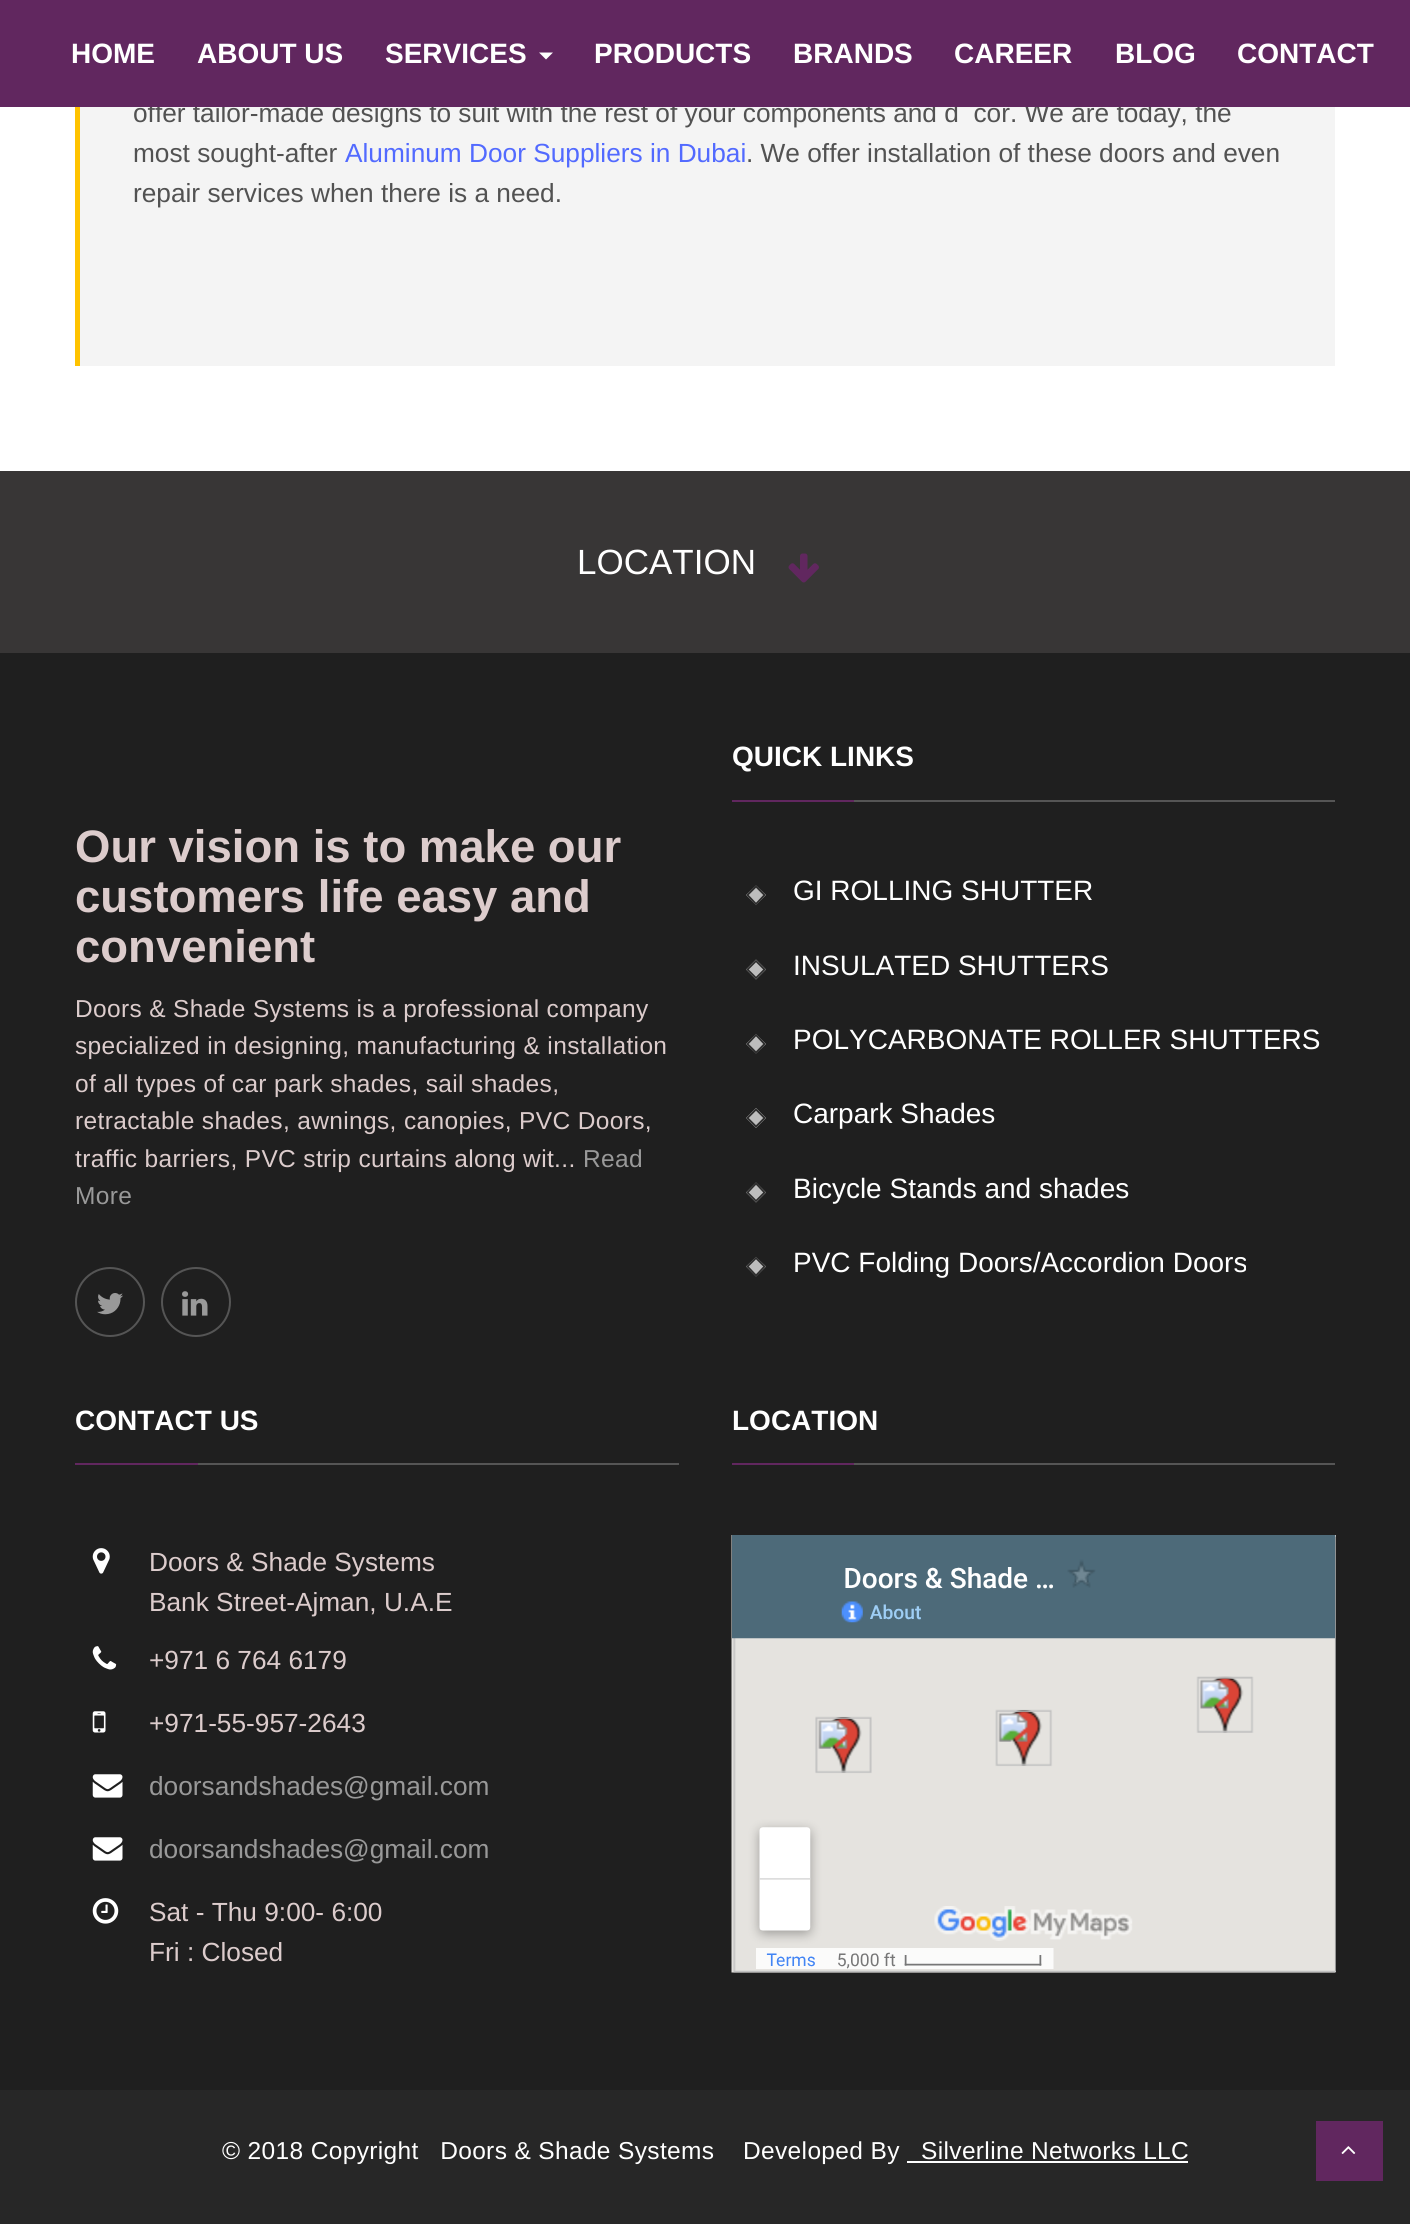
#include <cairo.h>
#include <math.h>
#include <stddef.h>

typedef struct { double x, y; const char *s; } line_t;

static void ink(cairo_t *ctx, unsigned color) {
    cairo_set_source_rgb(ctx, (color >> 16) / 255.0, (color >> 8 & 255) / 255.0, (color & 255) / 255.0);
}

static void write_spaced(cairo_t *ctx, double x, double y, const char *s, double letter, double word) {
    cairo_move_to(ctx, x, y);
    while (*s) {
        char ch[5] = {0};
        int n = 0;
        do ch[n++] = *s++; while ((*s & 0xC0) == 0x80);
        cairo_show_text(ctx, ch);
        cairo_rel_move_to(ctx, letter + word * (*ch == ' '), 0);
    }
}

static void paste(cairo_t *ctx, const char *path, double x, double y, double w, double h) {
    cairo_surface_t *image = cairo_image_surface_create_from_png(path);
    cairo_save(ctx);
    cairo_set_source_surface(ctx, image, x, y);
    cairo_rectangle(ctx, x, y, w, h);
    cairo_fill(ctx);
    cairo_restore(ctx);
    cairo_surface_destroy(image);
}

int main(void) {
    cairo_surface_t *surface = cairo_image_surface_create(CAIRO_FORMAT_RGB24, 1410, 2224);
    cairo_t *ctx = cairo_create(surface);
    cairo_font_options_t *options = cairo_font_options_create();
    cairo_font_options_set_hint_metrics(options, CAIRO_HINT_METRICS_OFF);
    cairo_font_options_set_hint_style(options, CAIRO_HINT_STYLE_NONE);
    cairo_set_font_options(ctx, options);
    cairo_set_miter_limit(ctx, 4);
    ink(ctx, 0xFFFFFF);
    cairo_paint(ctx);
    ink(ctx, 0xF4F4F4);
    cairo_rectangle(ctx, 80, 107, 1255, 259);
    cairo_fill(ctx);
    cairo_select_font_face(ctx, "Liberation Sans", CAIRO_FONT_SLANT_NORMAL, CAIRO_FONT_WEIGHT_NORMAL);
    cairo_set_font_size(ctx, 26.25);
    ink(ctx, 0x525252);
    cairo_move_to(ctx, 133, 122);
    cairo_show_text(ctx, "offer tailor-made designs to suit with the rest of your components and d  cor. We are today, the");
    ink(ctx, 0x61275F);
    cairo_rectangle(ctx, 0, 0, 1410, 107);
    cairo_fill(ctx);
    cairo_select_font_face(ctx, "Liberation Sans", CAIRO_FONT_SLANT_NORMAL, CAIRO_FONT_WEIGHT_BOLD);
    cairo_set_font_size(ctx, 28);
    ink(ctx, 0xFFFFFF);
    {
        static const line_t items[] = {
            {71, 63, "HOME"},
            {197, 63, "ABOUT US"},
            {385, 63, "SERVICES"},
        };
        for (size_t i = 0; i < sizeof items / sizeof *items; i++) {
            cairo_move_to(ctx, items[i].x, items[i].y);
            cairo_show_text(ctx, items[i].s);
        }
    }
    cairo_new_path(ctx);
    cairo_move_to(ctx, 539, 52.5);
    cairo_line_to(ctx, 553, 52.5);
    cairo_line_to(ctx, 546, 59.5);
    cairo_close_path(ctx);
    cairo_fill(ctx);
    {
        static const line_t items[] = {
            {594, 63, "PRODUCTS"},
            {793, 63, "BRANDS"},
            {954, 63, "CAREER"},
            {1115, 63, "BLOG"},
            {1237, 63, "CONTACT"},
        };
        for (size_t i = 0; i < sizeof items / sizeof *items; i++) {
            cairo_move_to(ctx, items[i].x, items[i].y);
            cairo_show_text(ctx, items[i].s);
        }
    }
    ink(ctx, 0xFFC300);
    cairo_rectangle(ctx, 75, 107, 5, 259);
    cairo_fill(ctx);
    cairo_select_font_face(ctx, "Liberation Sans", CAIRO_FONT_SLANT_NORMAL, CAIRO_FONT_WEIGHT_NORMAL);
    cairo_set_font_size(ctx, 26.25);
    ink(ctx, 0x525252);
    cairo_move_to(ctx, 133, 162);
    cairo_show_text(ctx, "most sought-after");
    ink(ctx, 0x526AFF);
    cairo_move_to(ctx, 345, 162);
    cairo_show_text(ctx, "Aluminum Door Suppliers in Dubai");
    ink(ctx, 0x525252);
    cairo_move_to(ctx, 746, 162);
    cairo_show_text(ctx, ". We offer installation of these doors and even");
    cairo_move_to(ctx, 133, 202);
    cairo_show_text(ctx, "repair services when there is a need.");
    ink(ctx, 0x383636);
    cairo_rectangle(ctx, 0, 471, 1410, 182);
    cairo_fill(ctx);
    cairo_set_font_size(ctx, 35);
    ink(ctx, 0xFFFFFF);
    cairo_move_to(ctx, 577, 574);
    cairo_show_text(ctx, "LOCATION");
    paste(ctx, "media/1.png", 788, 553, 31, 30);
    ink(ctx, 0x1F1F1F);
    cairo_rectangle(ctx, 0, 653, 1410, 1437);
    cairo_fill(ctx);
    cairo_select_font_face(ctx, "Liberation Sans", CAIRO_FONT_SLANT_NORMAL, CAIRO_FONT_WEIGHT_BOLD);
    cairo_set_font_size(ctx, 45.5);
    ink(ctx, 0xDCCCCC);
    {
        static const line_t items[] = {
            {75, 862, "Our vision is to make our"},
            {75, 912, "customers life easy and"},
            {75, 962, "convenient"},
        };
        for (size_t i = 0; i < sizeof items / sizeof *items; i++) {
            cairo_move_to(ctx, items[i].x, items[i].y);
            cairo_show_text(ctx, items[i].s);
        }
    }
    cairo_select_font_face(ctx, "Liberation Sans", CAIRO_FONT_SLANT_NORMAL, CAIRO_FONT_WEIGHT_NORMAL);
    cairo_set_font_size(ctx, 24.5);
    {
        static const line_t items[] = {
            {75, 1017, "Doors & Shade Systems is a professional company"},
            {75, 1054, "specialized in designing, manufacturing & installation"},
            {75, 1092, "of all types of car park shades, sail shades,"},
            {75, 1129, "retractable shades, awnings, canopies, PVC Doors,"},
            {75, 1167, "traffic barriers, PVC strip curtains along wit..."},
        };
        for (size_t i = 0; i < sizeof items / sizeof *items; i++) {
            write_spaced(ctx, items[i].x, items[i].y, items[i].s, 0.35, 0);
        }
    }
    ink(ctx, 0x999999);
    write_spaced(ctx, 583, 1167, "Read", 0.35, 0);
    write_spaced(ctx, 75, 1204, "More", 0.35, 0);
    cairo_new_path(ctx);
    cairo_arc(ctx, 110, 1302, 34, 0, 2 * M_PI);
    ink(ctx, 0x555555);
    cairo_stroke(ctx);
    paste(ctx, "media/2.png", 97, 1293, 26, 22);
    cairo_arc(ctx, 196, 1302, 34, 0, 2 * M_PI);
    cairo_stroke(ctx);
    paste(ctx, "media/3.png", 182, 1291, 26, 25);
    cairo_rectangle(ctx, 854, 800, 481, 2);
    cairo_fill(ctx);
    cairo_select_font_face(ctx, "Liberation Sans", CAIRO_FONT_SLANT_NORMAL, CAIRO_FONT_WEIGHT_BOLD);
    cairo_set_font_size(ctx, 28);
    ink(ctx, 0xFFFFFF);
    cairo_move_to(ctx, 732, 766);
    cairo_show_text(ctx, "QUICK LINKS");
    ink(ctx, 0x61275F);
    cairo_rectangle(ctx, 732, 800, 122, 2);
    cairo_fill(ctx);
    ink(ctx, 0xBDBDBD);
    cairo_new_path(ctx);
    cairo_move_to(ctx, 756, 885.5);
    cairo_line_to(ctx, 766, 895);
    cairo_line_to(ctx, 756, 905);
    cairo_line_to(ctx, 746, 895);
    cairo_close_path(ctx);
    cairo_fill(ctx);
    cairo_new_path(ctx);
    cairo_move_to(ctx, 756, 886.5);
    cairo_line_to(ctx, 764.5, 895);
    cairo_line_to(ctx, 756, 904);
    cairo_line_to(ctx, 747.5, 895);
    cairo_close_path(ctx);
    ink(ctx, 0x2D2D2D);
    cairo_set_line_width(ctx, 1.8);
    cairo_stroke(ctx);
    cairo_select_font_face(ctx, "Liberation Sans", CAIRO_FONT_SLANT_NORMAL, CAIRO_FONT_WEIGHT_NORMAL);
    ink(ctx, 0xFFFFFF);
    cairo_move_to(ctx, 793, 900);
    cairo_show_text(ctx, "GI ROLLING SHUTTER");
    ink(ctx, 0xBDBDBD);
    cairo_new_path(ctx);
    cairo_move_to(ctx, 756, 959.5);
    cairo_line_to(ctx, 766, 969.5);
    cairo_line_to(ctx, 756, 979.5);
    cairo_line_to(ctx, 746, 969.5);
    cairo_close_path(ctx);
    cairo_fill(ctx);
    cairo_new_path(ctx);
    cairo_move_to(ctx, 756, 961);
    cairo_line_to(ctx, 764.5, 969.5);
    cairo_line_to(ctx, 756, 978);
    cairo_line_to(ctx, 747.5, 969.5);
    cairo_close_path(ctx);
    ink(ctx, 0x2D2D2D);
    cairo_stroke(ctx);
    ink(ctx, 0xFFFFFF);
    cairo_move_to(ctx, 793, 975);
    cairo_show_text(ctx, "INSULATED SHUTTERS");
    ink(ctx, 0xBDBDBD);
    cairo_new_path(ctx);
    cairo_move_to(ctx, 756, 1034);
    cairo_line_to(ctx, 766, 1044);
    cairo_line_to(ctx, 756, 1053.5);
    cairo_line_to(ctx, 746, 1044);
    cairo_close_path(ctx);
    cairo_fill(ctx);
    cairo_new_path(ctx);
    cairo_move_to(ctx, 756, 1035);
    cairo_line_to(ctx, 764.5, 1044);
    cairo_line_to(ctx, 756, 1052.5);
    cairo_line_to(ctx, 747.5, 1044);
    cairo_close_path(ctx);
    ink(ctx, 0x2D2D2D);
    cairo_stroke(ctx);
    ink(ctx, 0xFFFFFF);
    cairo_move_to(ctx, 793, 1049);
    cairo_show_text(ctx, "POLYCARBONATE ROLLER SHUTTERS");
    ink(ctx, 0xBDBDBD);
    cairo_new_path(ctx);
    cairo_move_to(ctx, 756, 1108);
    cairo_line_to(ctx, 766, 1118);
    cairo_line_to(ctx, 756, 1128);
    cairo_line_to(ctx, 746, 1118);
    cairo_close_path(ctx);
    cairo_fill(ctx);
    cairo_new_path(ctx);
    cairo_move_to(ctx, 756, 1109.5);
    cairo_line_to(ctx, 764.5, 1118);
    cairo_line_to(ctx, 756, 1126.5);
    cairo_line_to(ctx, 747.5, 1118);
    cairo_close_path(ctx);
    ink(ctx, 0x2D2D2D);
    cairo_stroke(ctx);
    ink(ctx, 0xFFFFFF);
    cairo_move_to(ctx, 793, 1123);
    cairo_show_text(ctx, "Carpark Shades");
    ink(ctx, 0xBDBDBD);
    cairo_new_path(ctx);
    cairo_move_to(ctx, 756, 1182.5);
    cairo_line_to(ctx, 766, 1192.5);
    cairo_line_to(ctx, 756, 1202.5);
    cairo_line_to(ctx, 746, 1192.5);
    cairo_close_path(ctx);
    cairo_fill(ctx);
    cairo_new_path(ctx);
    cairo_move_to(ctx, 756, 1183.5);
    cairo_line_to(ctx, 764.5, 1192.5);
    cairo_line_to(ctx, 756, 1201);
    cairo_line_to(ctx, 747.5, 1192.5);
    cairo_close_path(ctx);
    ink(ctx, 0x2D2D2D);
    cairo_stroke(ctx);
    ink(ctx, 0xFFFFFF);
    cairo_move_to(ctx, 793, 1198);
    cairo_show_text(ctx, "Bicycle Stands and shades");
    ink(ctx, 0xBDBDBD);
    cairo_new_path(ctx);
    cairo_move_to(ctx, 756, 1257);
    cairo_line_to(ctx, 766, 1266.5);
    cairo_line_to(ctx, 756, 1276.5);
    cairo_line_to(ctx, 746, 1266.5);
    cairo_close_path(ctx);
    cairo_fill(ctx);
    cairo_new_path(ctx);
    cairo_move_to(ctx, 756, 1258);
    cairo_line_to(ctx, 764.5, 1266.5);
    cairo_line_to(ctx, 756, 1275.5);
    cairo_line_to(ctx, 747.5, 1266.5);
    cairo_close_path(ctx);
    ink(ctx, 0x2D2D2D);
    cairo_stroke(ctx);
    ink(ctx, 0xFFFFFF);
    cairo_move_to(ctx, 793, 1272);
    cairo_show_text(ctx, "PVC Folding Doors/Accordion Doors");
    ink(ctx, 0x555555);
    cairo_rectangle(ctx, 198, 1463, 481, 2);
    cairo_fill(ctx);
    cairo_select_font_face(ctx, "Liberation Sans", CAIRO_FONT_SLANT_NORMAL, CAIRO_FONT_WEIGHT_BOLD);
    ink(ctx, 0xFFFFFF);
    cairo_move_to(ctx, 75, 1430);
    cairo_show_text(ctx, "CONTACT US");
    ink(ctx, 0x61275F);
    cairo_rectangle(ctx, 75, 1463, 123, 2);
    cairo_fill(ctx);
    paste(ctx, "media/4.png", 92, 1548, 18, 26);
    cairo_select_font_face(ctx, "Liberation Sans", CAIRO_FONT_SLANT_NORMAL, CAIRO_FONT_WEIGHT_NORMAL);
    cairo_set_font_size(ctx, 26.25);
    ink(ctx, 0xDCCCCC);
    cairo_move_to(ctx, 149, 1571);
    cairo_show_text(ctx, "Doors & Shade Systems");
    cairo_move_to(ctx, 149, 1611);
    cairo_show_text(ctx, "Bank Street-Ajman, U.A.E");
    paste(ctx, "media/5.png", 92, 1646, 25, 24);
    cairo_move_to(ctx, 149, 1669);
    cairo_show_text(ctx, "+971 6 764 6179");
    paste(ctx, "media/6.png", 92, 1711, 14, 22);
    cairo_move_to(ctx, 149, 1732);
    cairo_show_text(ctx, "+971-55-957-2643");
    paste(ctx, "media/7.png", 92, 1774, 31, 24);
    ink(ctx, 0x999999);
    cairo_move_to(ctx, 149, 1795);
    cairo_show_text(ctx, "doorsandshades@gmail.com");
    paste(ctx, "media/7.png", 92, 1837, 31, 24);
    cairo_move_to(ctx, 149, 1858);
    cairo_show_text(ctx, "doorsandshades@gmail.com");
    paste(ctx, "media/8.png", 92, 1898, 27, 26);
    ink(ctx, 0xDCCCCC);
    cairo_move_to(ctx, 149, 1921);
    cairo_show_text(ctx, "Sat - Thu 9:00- 6:00");
    cairo_move_to(ctx, 149, 1961);
    cairo_show_text(ctx, "Fri : Closed");
    ink(ctx, 0x555555);
    cairo_rectangle(ctx, 854, 1463, 481, 2);
    cairo_fill(ctx);
    cairo_select_font_face(ctx, "Liberation Sans", CAIRO_FONT_SLANT_NORMAL, CAIRO_FONT_WEIGHT_BOLD);
    cairo_set_font_size(ctx, 28);
    ink(ctx, 0xFFFFFF);
    cairo_move_to(ctx, 732, 1430);
    cairo_show_text(ctx, "LOCATION");
    ink(ctx, 0x61275F);
    cairo_rectangle(ctx, 732, 1463, 122, 2);
    cairo_fill(ctx);
    paste(ctx, "media/9.png", 731, 1535, 605, 438);
    ink(ctx, 0x272727);
    cairo_rectangle(ctx, 0, 2090, 1410, 134);
    cairo_fill(ctx);
    cairo_select_font_face(ctx, "Liberation Sans", CAIRO_FONT_SLANT_NORMAL, CAIRO_FONT_WEIGHT_NORMAL);
    cairo_set_font_size(ctx, 24.5);
    ink(ctx, 0xFFFFFF);
    {
        static const line_t items[] = {
            {222, 2159, "© 2018 Copyright   Doors & Shade Systems"},
            {743, 2159, "Developed By"},
            {921, 2159, "Silverline Networks LLC"},
        };
        for (size_t i = 0; i < sizeof items / sizeof *items; i++) {
            write_spaced(ctx, items[i].x, items[i].y, items[i].s, 0.35, 0);
        }
    }
    cairo_rectangle(ctx, 907, 2161, 281, 2);
    cairo_fill(ctx);
    ink(ctx, 0x61275F);
    cairo_rectangle(ctx, 1316, 2121, 67, 60);
    cairo_fill(ctx);
    paste(ctx, "media/10.png", 1341, 2146, 15, 8);
    cairo_surface_write_to_png(surface, "image.png");
    cairo_font_options_destroy(options);
    cairo_destroy(ctx);
    cairo_surface_destroy(surface);
    return 0;
}
